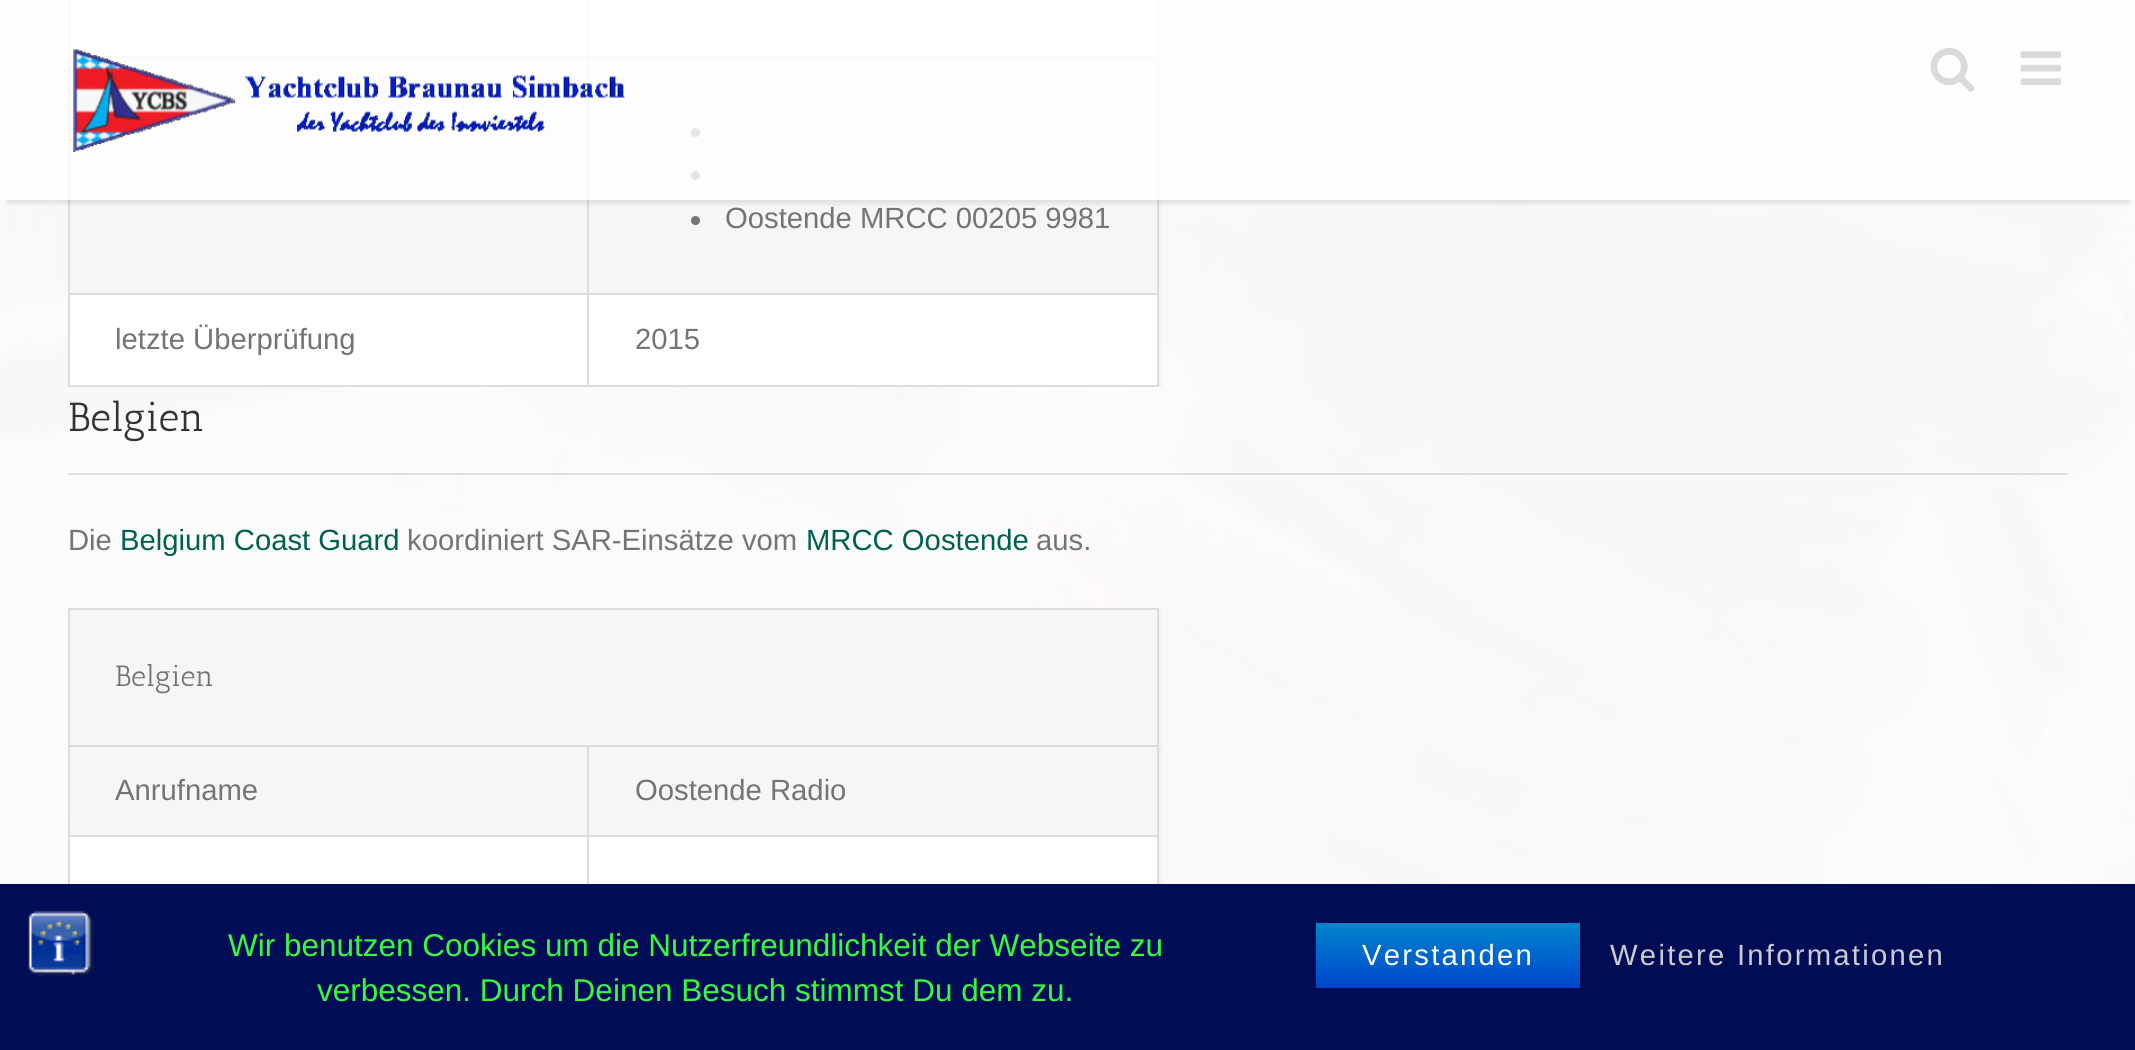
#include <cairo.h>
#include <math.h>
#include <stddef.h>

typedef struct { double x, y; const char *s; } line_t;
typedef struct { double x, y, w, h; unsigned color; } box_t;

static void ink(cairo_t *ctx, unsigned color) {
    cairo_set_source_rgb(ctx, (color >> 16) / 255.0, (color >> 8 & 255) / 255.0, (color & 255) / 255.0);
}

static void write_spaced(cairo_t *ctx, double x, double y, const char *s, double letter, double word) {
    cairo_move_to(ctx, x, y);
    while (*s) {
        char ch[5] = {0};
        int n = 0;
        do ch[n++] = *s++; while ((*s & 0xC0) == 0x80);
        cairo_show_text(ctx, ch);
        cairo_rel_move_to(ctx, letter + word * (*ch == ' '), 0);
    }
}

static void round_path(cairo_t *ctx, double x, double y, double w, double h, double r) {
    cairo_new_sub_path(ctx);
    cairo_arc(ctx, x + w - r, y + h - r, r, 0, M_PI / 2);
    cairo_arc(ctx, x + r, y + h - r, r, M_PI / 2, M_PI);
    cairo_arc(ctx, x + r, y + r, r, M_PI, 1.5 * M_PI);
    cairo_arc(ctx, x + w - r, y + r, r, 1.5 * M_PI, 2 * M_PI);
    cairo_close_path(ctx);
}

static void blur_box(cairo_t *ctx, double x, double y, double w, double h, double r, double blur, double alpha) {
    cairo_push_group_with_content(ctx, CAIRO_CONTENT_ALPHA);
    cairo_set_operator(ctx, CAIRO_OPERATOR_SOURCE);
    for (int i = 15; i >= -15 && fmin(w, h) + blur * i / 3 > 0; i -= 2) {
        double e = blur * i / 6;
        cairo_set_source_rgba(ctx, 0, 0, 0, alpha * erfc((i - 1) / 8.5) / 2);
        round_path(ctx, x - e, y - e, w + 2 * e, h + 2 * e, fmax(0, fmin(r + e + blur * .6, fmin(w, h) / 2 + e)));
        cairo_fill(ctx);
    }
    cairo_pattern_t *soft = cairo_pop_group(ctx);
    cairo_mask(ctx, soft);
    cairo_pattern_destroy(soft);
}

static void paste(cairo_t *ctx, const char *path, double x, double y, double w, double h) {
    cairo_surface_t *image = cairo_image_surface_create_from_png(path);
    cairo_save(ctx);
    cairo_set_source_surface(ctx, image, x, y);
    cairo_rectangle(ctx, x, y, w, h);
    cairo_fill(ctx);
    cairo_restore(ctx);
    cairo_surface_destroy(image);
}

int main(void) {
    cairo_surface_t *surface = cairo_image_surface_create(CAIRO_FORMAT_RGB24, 2135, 1050);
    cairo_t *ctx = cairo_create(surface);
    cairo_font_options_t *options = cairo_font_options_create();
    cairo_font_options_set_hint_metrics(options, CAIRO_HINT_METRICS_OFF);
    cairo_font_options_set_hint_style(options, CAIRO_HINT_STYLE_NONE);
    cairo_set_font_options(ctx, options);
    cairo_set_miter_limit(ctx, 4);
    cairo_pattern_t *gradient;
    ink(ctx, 0xFFFFFF);
    cairo_paint(ctx);
    paste(ctx, "media/1.png", 0, 0, 2135, 884);
    cairo_save(ctx);
    cairo_rectangle(ctx, 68, 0, 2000, 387);
    cairo_clip(ctx);
    ink(ctx, 0x000000);
    blur_box(ctx, 68, -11, 1091, 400, 0, 3.5, 0.08);
    cairo_restore(ctx);
    {
        static const box_t items[] = {
            {70, 0, 1087, 385, 0xFFFFFF},
            {1157, 0, 2, 387, 0xDCDCDC},
            {68, 385, 1091, 2, 0xDCDCDC},
            {68, 0, 2, 387, 0xDCDCDC},
            {70, 58, 1087, 235, 0xF6F6F6},
            {587, 56, 572, 2, 0xDCDCDC},
            {587, 293, 572, 2, 0xDCDCDC},
            {587, 293, 2, 94, 0xDCDCDC},
            {68, 293, 522, 2, 0xDCDCDC},
            {587, 56, 2, 239, 0xDCDCDC},
            {68, 56, 522, 2, 0xDCDCDC},
            {587, 0, 2, 59, 0xDCDCDC},
        };
        for (size_t i = 0; i < sizeof items / sizeof *items; i++) {
            ink(ctx, items[i].color);
            cairo_rectangle(ctx, items[i].x, items[i].y, items[i].w, items[i].h);
            cairo_fill(ctx);
        }
    }
    ink(ctx, 0x747474);
    cairo_arc(ctx, 695.5, 132.5, 4.5, 0, 2 * M_PI);
    cairo_fill(ctx);
    cairo_arc(ctx, 695.5, 175.5, 4.5, 0, 2 * M_PI);
    cairo_fill(ctx);
    cairo_save(ctx);
    cairo_rectangle(ctx, 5, 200, 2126, 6);
    cairo_clip(ctx);
    ink(ctx, 0x000000);
    blur_box(ctx, 7, 16, 2122, 187, 0, 3.5, 0.12);
    cairo_restore(ctx);
    cairo_set_source_rgba(ctx, 1, 1, 1, 0.82);
    cairo_rectangle(ctx, 0, 0, 2135, 200);
    cairo_fill(ctx);
    paste(ctx, "media/2.png", 73, 49, 552, 103);
    paste(ctx, "media/3.png", 1930, 48, 45, 44);
    paste(ctx, "media/4.png", 2020, 51, 41, 34);
    ink(ctx, 0x747474);
    cairo_arc(ctx, 695.5, 220.5, 4.5, 0, 2 * M_PI);
    cairo_fill(ctx);
    cairo_select_font_face(ctx, "Liberation Sans", CAIRO_FONT_SLANT_NORMAL, CAIRO_FONT_WEIGHT_NORMAL);
    cairo_set_font_size(ctx, 29.25);
    {
        static const line_t items[] = {
            {725, 228, "Oostende MRCC 00205 9981"},
            {115, 349, "letzte Überprüfung"},
            {635, 349, "2015"},
        };
        for (size_t i = 0; i < sizeof items / sizeof *items; i++) {
            cairo_move_to(ctx, items[i].x, items[i].y);
            cairo_show_text(ctx, items[i].s);
        }
    }
    ink(ctx, 0xE0DEDE);
    cairo_rectangle(ctx, 68, 473, 2000, 2);
    cairo_fill(ctx);
    cairo_select_font_face(ctx, "Antic Slab", CAIRO_FONT_SLANT_NORMAL, CAIRO_FONT_WEIGHT_NORMAL);
    cairo_set_font_size(ctx, 40.5);
    ink(ctx, 0x333333);
    cairo_move_to(ctx, 68, 431);
    cairo_show_text(ctx, "Belgien");
    cairo_select_font_face(ctx, "Liberation Sans", CAIRO_FONT_SLANT_NORMAL, CAIRO_FONT_WEIGHT_NORMAL);
    cairo_set_font_size(ctx, 29.25);
    ink(ctx, 0x747474);
    cairo_move_to(ctx, 68, 550);
    cairo_show_text(ctx, "Die");
    ink(ctx, 0x006050);
    cairo_move_to(ctx, 120, 550);
    cairo_show_text(ctx, "Belgium Coast Guard");
    ink(ctx, 0x747474);
    cairo_move_to(ctx, 407, 550);
    cairo_show_text(ctx, "koordiniert SAR-Einsätze vom");
    ink(ctx, 0x006050);
    cairo_move_to(ctx, 806, 550);
    cairo_show_text(ctx, "MRCC Oostende");
    ink(ctx, 0x747474);
    cairo_move_to(ctx, 1036, 550);
    cairo_show_text(ctx, "aus.");
    cairo_save(ctx);
    cairo_rectangle(ctx, 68, 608, 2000, 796);
    cairo_clip(ctx);
    ink(ctx, 0x000000);
    blur_box(ctx, 68, 610, 1091, 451, 0, 3.5, 0.08);
    cairo_restore(ctx);
    {
        static const box_t items[] = {
            {70, 837, 1087, 47, 0xFFFFFF},
            {68, 608, 1091, 2, 0xDCDCDC},
            {1157, 608, 2, 276, 0xDCDCDC},
            {68, 608, 2, 276, 0xDCDCDC},
            {70, 610, 1087, 135, 0xF6F6F6},
        };
        for (size_t i = 0; i < sizeof items / sizeof *items; i++) {
            ink(ctx, items[i].color);
            cairo_rectangle(ctx, items[i].x, items[i].y, items[i].w, items[i].h);
            cairo_fill(ctx);
        }
    }
    cairo_select_font_face(ctx, "Antic Slab", CAIRO_FONT_SLANT_NORMAL, CAIRO_FONT_WEIGHT_NORMAL);
    ink(ctx, 0x747474);
    cairo_move_to(ctx, 115, 686);
    cairo_show_text(ctx, "Belgien");
    {
        static const box_t items[] = {
            {70, 747, 1087, 88, 0xF6F6F6},
            {587, 745, 572, 2, 0xDCDCDC},
            {587, 835, 572, 2, 0xDCDCDC},
            {587, 835, 2, 49, 0xDCDCDC},
            {68, 835, 522, 2, 0xDCDCDC},
            {587, 745, 2, 92, 0xDCDCDC},
            {68, 745, 522, 2, 0xDCDCDC},
        };
        for (size_t i = 0; i < sizeof items / sizeof *items; i++) {
            ink(ctx, items[i].color);
            cairo_rectangle(ctx, items[i].x, items[i].y, items[i].w, items[i].h);
            cairo_fill(ctx);
        }
    }
    cairo_select_font_face(ctx, "Liberation Sans", CAIRO_FONT_SLANT_NORMAL, CAIRO_FONT_WEIGHT_NORMAL);
    ink(ctx, 0x747474);
    cairo_move_to(ctx, 115, 800);
    cairo_show_text(ctx, "Anrufname");
    cairo_move_to(ctx, 635, 800);
    cairo_show_text(ctx, "Oostende Radio");
    ink(ctx, 0x000D56);
    cairo_rectangle(ctx, 0, 884, 2135, 166);
    cairo_fill(ctx);
    paste(ctx, "media/5.png", 28, 910, 66, 67);
    cairo_set_font_size(ctx, 31.5);
    ink(ctx, 0x39F93F);
    cairo_move_to(ctx, 228, 956);
    cairo_show_text(ctx, "Wir benutzen Cookies um die Nutzerfreundlichkeit der Webseite zu");
    cairo_move_to(ctx, 317, 1001);
    cairo_show_text(ctx, "verbessen. Durch Deinen Besuch stimmst Du dem zu.");
    gradient = cairo_pattern_create_linear(1448, 923, 1448, 988);
    cairo_pattern_add_color_stop_rgba(gradient, 0, 0, 0.533, 0.8, 1);
    cairo_pattern_add_color_stop_rgba(gradient, 1, 0, 0.267, 0.8, 1);
    cairo_set_source(ctx, gradient);
    cairo_pattern_destroy(gradient);
    cairo_rectangle(ctx, 1316, 923, 264, 65);
    cairo_fill(ctx);
    cairo_set_font_size(ctx, 29.25);
    ink(ctx, 0xFFFFFF);
    write_spaced(ctx, 1362, 965, "Verstanden", 2.25, 0);
    ink(ctx, 0xCCCCCC);
    write_spaced(ctx, 1610, 965, "Weitere Informationen", 2.25, 0);
    cairo_surface_write_to_png(surface, "image.png");
    cairo_font_options_destroy(options);
    cairo_destroy(ctx);
    cairo_surface_destroy(surface);
    return 0;
}
